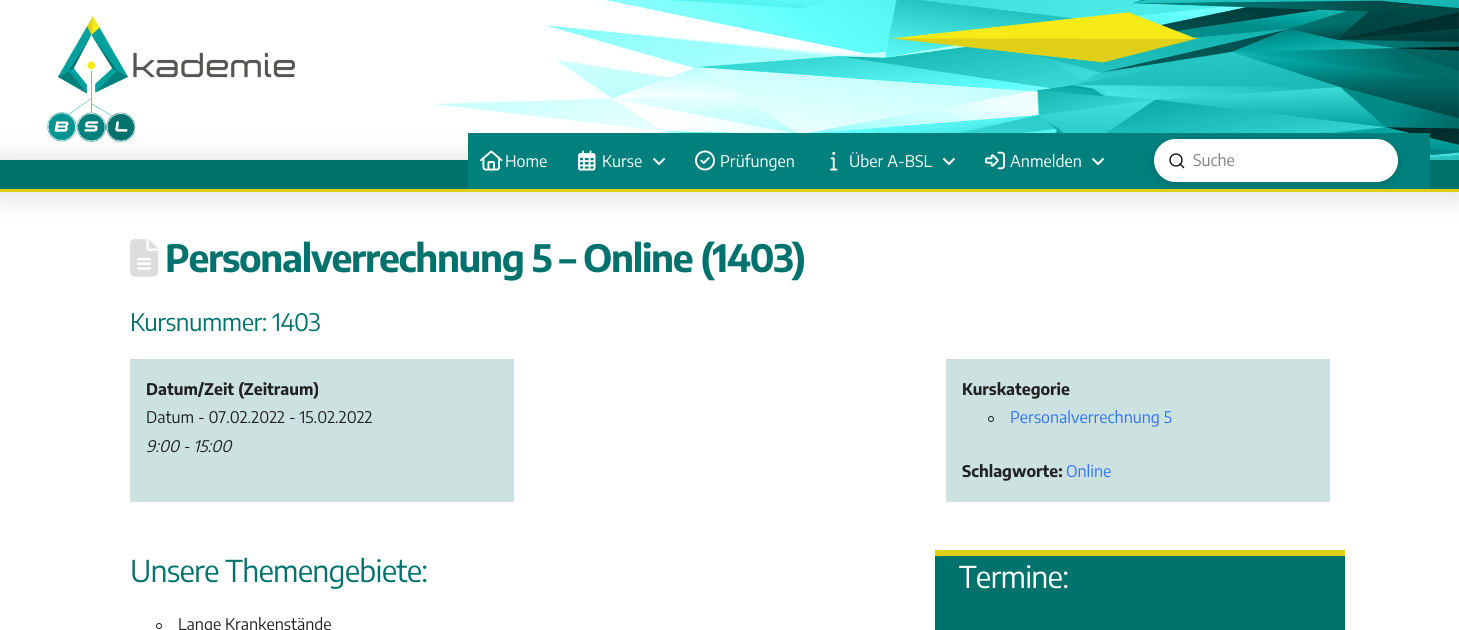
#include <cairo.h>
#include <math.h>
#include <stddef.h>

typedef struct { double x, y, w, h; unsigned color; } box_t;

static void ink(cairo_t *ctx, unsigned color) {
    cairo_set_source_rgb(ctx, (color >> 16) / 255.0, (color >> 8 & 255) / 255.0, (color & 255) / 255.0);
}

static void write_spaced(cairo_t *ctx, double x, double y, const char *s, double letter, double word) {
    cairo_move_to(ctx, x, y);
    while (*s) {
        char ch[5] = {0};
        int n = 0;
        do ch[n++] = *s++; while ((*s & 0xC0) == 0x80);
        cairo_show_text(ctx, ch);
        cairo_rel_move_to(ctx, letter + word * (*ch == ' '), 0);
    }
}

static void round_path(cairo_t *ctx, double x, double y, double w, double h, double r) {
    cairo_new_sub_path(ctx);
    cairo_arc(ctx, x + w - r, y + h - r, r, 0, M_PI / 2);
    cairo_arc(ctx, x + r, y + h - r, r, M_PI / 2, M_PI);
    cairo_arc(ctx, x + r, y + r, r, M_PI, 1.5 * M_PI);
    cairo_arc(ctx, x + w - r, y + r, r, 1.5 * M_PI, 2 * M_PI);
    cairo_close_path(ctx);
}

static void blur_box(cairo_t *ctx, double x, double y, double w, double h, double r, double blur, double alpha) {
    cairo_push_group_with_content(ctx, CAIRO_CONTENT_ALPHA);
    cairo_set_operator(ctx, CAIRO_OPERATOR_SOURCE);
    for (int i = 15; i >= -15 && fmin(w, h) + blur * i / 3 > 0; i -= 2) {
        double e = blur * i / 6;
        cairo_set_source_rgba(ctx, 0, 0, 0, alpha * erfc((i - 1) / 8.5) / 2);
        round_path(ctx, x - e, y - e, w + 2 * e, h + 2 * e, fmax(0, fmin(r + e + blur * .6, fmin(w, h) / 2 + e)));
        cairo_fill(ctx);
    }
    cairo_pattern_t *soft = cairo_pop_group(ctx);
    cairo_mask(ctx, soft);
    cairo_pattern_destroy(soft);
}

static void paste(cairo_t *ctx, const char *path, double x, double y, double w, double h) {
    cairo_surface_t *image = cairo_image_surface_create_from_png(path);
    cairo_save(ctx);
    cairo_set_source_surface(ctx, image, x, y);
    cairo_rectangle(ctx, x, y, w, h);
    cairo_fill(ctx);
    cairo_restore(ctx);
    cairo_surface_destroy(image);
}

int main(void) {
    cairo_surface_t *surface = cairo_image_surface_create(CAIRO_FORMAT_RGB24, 1459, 630);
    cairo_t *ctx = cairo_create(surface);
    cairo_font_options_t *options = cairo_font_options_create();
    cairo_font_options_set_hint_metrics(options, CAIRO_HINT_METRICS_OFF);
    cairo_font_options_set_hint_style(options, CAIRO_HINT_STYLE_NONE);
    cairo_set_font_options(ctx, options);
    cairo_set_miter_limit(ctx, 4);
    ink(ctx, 0xFFFFFF);
    cairo_paint(ctx);
    paste(ctx, "media/1.png", 47, 16, 248, 126);
    paste(ctx, "media/2.png", 434, 0, 1025, 160);
    paste(ctx, "media/9.png", 130, 239, 29, 38);
    ink(ctx, 0x000000);
    blur_box(ctx, 0, 162, 1459, 32, 0, 16, 0.15);
    {
        static const box_t items[] = {
            {0, 160, 1459, 29, 0x00726E},
            {0, 189, 1459, 3, 0xDFD017},
            {468, 133, 962, 56, 0x00807D},
        };
        for (size_t i = 0; i < sizeof items / sizeof *items; i++) {
            ink(ctx, items[i].color);
            cairo_rectangle(ctx, items[i].x, items[i].y, items[i].w, items[i].h);
            cairo_fill(ctx);
        }
    }
    paste(ctx, "media/3.png", 480, 150, 23, 21);
    cairo_select_font_face(ctx, "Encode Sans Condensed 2 Thin", CAIRO_FONT_SLANT_NORMAL, CAIRO_FONT_WEIGHT_NORMAL);
    cairo_set_font_size(ctx, 16);
    ink(ctx, 0xFFFFFF);
    cairo_move_to(ctx, 505, 167);
    cairo_show_text(ctx, "Home");
    paste(ctx, "media/4.png", 578, 150, 18, 21);
    cairo_move_to(ctx, 602, 167);
    cairo_show_text(ctx, "Kurse");
    paste(ctx, "media/5.png", 653, 158, 12, 7);
    paste(ctx, "media/6.png", 695, 150, 20, 21);
    cairo_move_to(ctx, 720, 167);
    cairo_show_text(ctx, "Prüfungen");
    paste(ctx, "media/7.png", 830, 151, 8, 20);
    cairo_move_to(ctx, 849, 167);
    cairo_show_text(ctx, "Über A-BSL");
    paste(ctx, "media/5.png", 943, 158, 12, 7);
    paste(ctx, "media/8.png", 985, 151, 20, 19);
    cairo_move_to(ctx, 1010, 167);
    cairo_show_text(ctx, "Anmelden");
    paste(ctx, "media/5.png", 1092, 158, 12, 7);
    ink(ctx, 0x000000);
    blur_box(ctx, 1154, 141, 244, 43, 21.5, 4, 0.15);
    ink(ctx, 0xFFFFFF);
    round_path(ctx, 1154, 139, 244, 43, 21.5);
    cairo_fill(ctx);
    cairo_arc(ctx, 1176, 160, 6, 0, 2 * M_PI);
    ink(ctx, 0x000000);
    cairo_set_line_width(ctx, 1.3);
    cairo_stroke(ctx);
    cairo_new_path(ctx);
    cairo_move_to(ctx, 1183.5, 167.5);
    cairo_line_to(ctx, 1180, 164);
    cairo_set_line_cap(ctx, CAIRO_LINE_CAP_SQUARE);
    cairo_stroke(ctx);
    ink(ctx, 0x808080);
    cairo_move_to(ctx, 1193, 166);
    cairo_show_text(ctx, "Suche");
    cairo_select_font_face(ctx, "Encode Sans Condensed Thin", CAIRO_FONT_SLANT_NORMAL, CAIRO_FONT_WEIGHT_NORMAL);
    cairo_set_font_size(ctx, 37.6);
    ink(ctx, 0x00726E);
    write_spaced(ctx, 165, 272, "Personalverrechnung 5 – Online (1403)", -1.3, 0);
    cairo_select_font_face(ctx, "Encode Sans Condensed 2 Thin", CAIRO_FONT_SLANT_NORMAL, CAIRO_FONT_WEIGHT_NORMAL);
    cairo_set_font_size(ctx, 24);
    write_spaced(ctx, 130, 331, "Kursnummer: 1403", -0.5, 0);
    ink(ctx, 0xCBE2E1);
    cairo_rectangle(ctx, 130, 359, 384, 143);
    cairo_fill(ctx);
    cairo_select_font_face(ctx, "Encode Sans Condensed Thin", CAIRO_FONT_SLANT_NORMAL, CAIRO_FONT_WEIGHT_NORMAL);
    cairo_set_font_size(ctx, 16);
    ink(ctx, 0x212121);
    cairo_move_to(ctx, 146, 395);
    cairo_show_text(ctx, "Datum/Zeit (Zeitraum)");
    cairo_select_font_face(ctx, "Encode Sans Condensed 2 Thin", CAIRO_FONT_SLANT_NORMAL, CAIRO_FONT_WEIGHT_NORMAL);
    cairo_move_to(ctx, 146, 423);
    cairo_show_text(ctx, "Datum - 07.02.2022 - 15.02.2022");
    cairo_select_font_face(ctx, "Encode Sans Condensed Thin", CAIRO_FONT_SLANT_ITALIC, CAIRO_FONT_WEIGHT_NORMAL);
    cairo_move_to(ctx, 146, 452);
    cairo_show_text(ctx, "9:00 - 15:00");
    ink(ctx, 0xCBE2E1);
    cairo_rectangle(ctx, 946, 359, 384, 143);
    cairo_fill(ctx);
    cairo_select_font_face(ctx, "Encode Sans Condensed Thin", CAIRO_FONT_SLANT_NORMAL, CAIRO_FONT_WEIGHT_NORMAL);
    ink(ctx, 0x212121);
    cairo_move_to(ctx, 962, 395);
    cairo_show_text(ctx, "Kurskategorie");
    cairo_new_path(ctx);
    cairo_arc(ctx, 991, 419, 2.5, 0, 2 * M_PI);
    cairo_set_line_width(ctx, 1);
    cairo_set_line_cap(ctx, CAIRO_LINE_CAP_BUTT);
    cairo_stroke(ctx);
    cairo_select_font_face(ctx, "Encode Sans Condensed 2 Thin", CAIRO_FONT_SLANT_NORMAL, CAIRO_FONT_WEIGHT_NORMAL);
    ink(ctx, 0x3372F0);
    cairo_move_to(ctx, 1010, 423);
    cairo_show_text(ctx, "Personalverrechnung 5");
    cairo_select_font_face(ctx, "Encode Sans Condensed Thin", CAIRO_FONT_SLANT_NORMAL, CAIRO_FONT_WEIGHT_NORMAL);
    ink(ctx, 0x212121);
    cairo_move_to(ctx, 962, 477);
    cairo_show_text(ctx, "Schlagworte:");
    cairo_select_font_face(ctx, "Encode Sans Condensed 2 Thin", CAIRO_FONT_SLANT_NORMAL, CAIRO_FONT_WEIGHT_NORMAL);
    ink(ctx, 0x3372F0);
    cairo_move_to(ctx, 1066, 477);
    cairo_show_text(ctx, "Online");
    cairo_set_font_size(ctx, 30);
    ink(ctx, 0x00726E);
    write_spaced(ctx, 130, 582, "Unsere Themengebiete:", -0.8, 0);
    cairo_new_path(ctx);
    cairo_arc(ctx, 159, 626, 2.5, 0, 2 * M_PI);
    ink(ctx, 0x212121);
    cairo_stroke(ctx);
    cairo_set_font_size(ctx, 16);
    cairo_move_to(ctx, 178, 630);
    cairo_show_text(ctx, "Lange Krankenstände");
    ink(ctx, 0x00726E);
    cairo_rectangle(ctx, 935, 556, 410, 74);
    cairo_fill(ctx);
    ink(ctx, 0xDFD017);
    cairo_rectangle(ctx, 935, 550, 410, 6);
    cairo_fill(ctx);
    cairo_set_font_size(ctx, 30);
    ink(ctx, 0xFFFFFF);
    write_spaced(ctx, 959, 588, "Termine:", -0.8, 0);
    cairo_surface_write_to_png(surface, "image.png");
    cairo_font_options_destroy(options);
    cairo_destroy(ctx);
    cairo_surface_destroy(surface);
    return 0;
}
